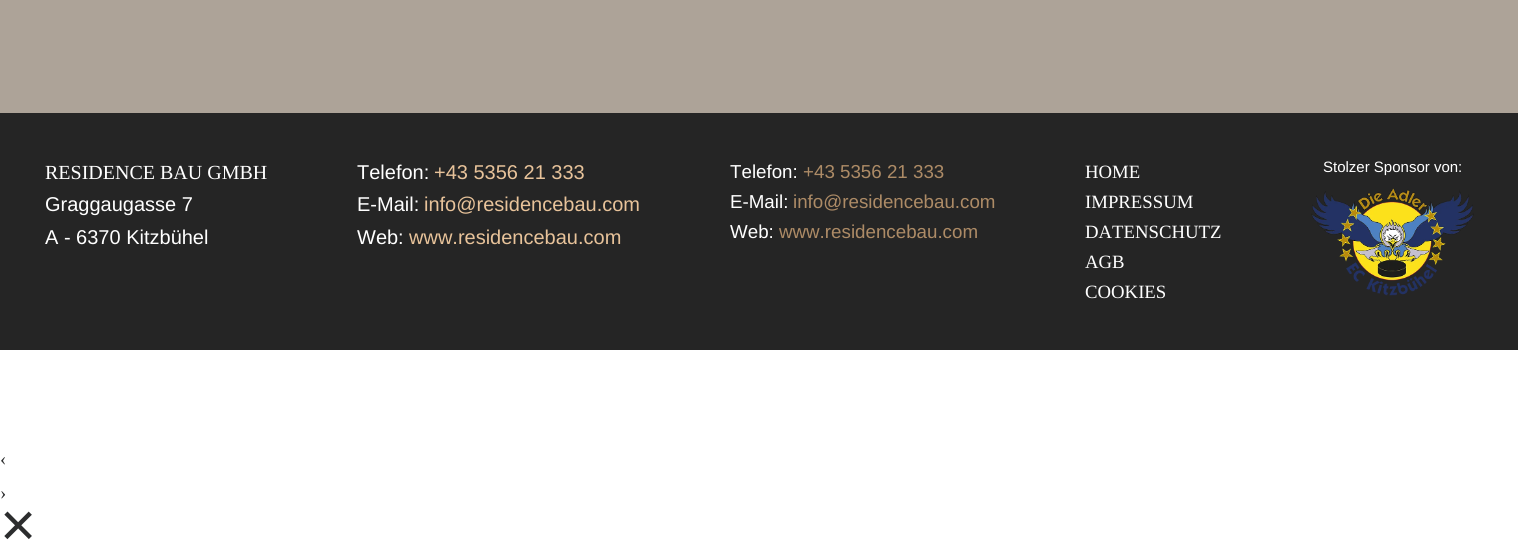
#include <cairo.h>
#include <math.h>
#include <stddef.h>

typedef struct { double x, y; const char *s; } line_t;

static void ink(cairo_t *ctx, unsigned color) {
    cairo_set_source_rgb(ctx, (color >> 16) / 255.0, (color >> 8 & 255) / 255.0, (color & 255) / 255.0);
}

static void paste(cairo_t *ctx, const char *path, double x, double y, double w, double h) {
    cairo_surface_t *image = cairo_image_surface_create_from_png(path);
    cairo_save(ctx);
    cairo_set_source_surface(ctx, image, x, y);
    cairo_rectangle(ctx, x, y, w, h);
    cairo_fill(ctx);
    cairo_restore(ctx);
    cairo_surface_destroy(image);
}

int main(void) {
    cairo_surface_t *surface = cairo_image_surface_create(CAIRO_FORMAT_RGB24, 1518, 560);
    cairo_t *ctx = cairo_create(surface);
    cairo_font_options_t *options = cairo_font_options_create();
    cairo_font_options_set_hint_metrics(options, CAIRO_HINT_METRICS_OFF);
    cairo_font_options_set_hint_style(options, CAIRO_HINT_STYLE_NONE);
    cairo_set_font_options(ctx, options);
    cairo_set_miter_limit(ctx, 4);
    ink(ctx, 0xFFFFFF);
    cairo_paint(ctx);
    ink(ctx, 0xADA398);
    cairo_rectangle(ctx, 0, 0, 1518, 113);
    cairo_fill(ctx);
    ink(ctx, 0x252525);
    cairo_rectangle(ctx, 0, 113, 1518, 237);
    cairo_fill(ctx);
    cairo_select_font_face(ctx, "Liberation Serif", CAIRO_FONT_SLANT_NORMAL, CAIRO_FONT_WEIGHT_NORMAL);
    cairo_set_font_size(ctx, 20);
    ink(ctx, 0xFFFFFF);
    cairo_move_to(ctx, 45, 179);
    cairo_show_text(ctx, "RESIDENCE BAU GMBH");
    cairo_select_font_face(ctx, "Liberation Sans", CAIRO_FONT_SLANT_NORMAL, CAIRO_FONT_WEIGHT_NORMAL);
    {
        static const line_t items[] = {
            {45, 211, "Graggaugasse 7"},
            {45, 244, "A - 6370 Kitzbühel"},
            {357, 179, "Telefon:"},
        };
        for (size_t i = 0; i < sizeof items / sizeof *items; i++) {
            cairo_move_to(ctx, items[i].x, items[i].y);
            cairo_show_text(ctx, items[i].s);
        }
    }
    ink(ctx, 0xE8C39A);
    cairo_move_to(ctx, 434, 179);
    cairo_show_text(ctx, "+43 5356 21 333");
    ink(ctx, 0xFFFFFF);
    cairo_move_to(ctx, 357, 211);
    cairo_show_text(ctx, "E-Mail:");
    ink(ctx, 0xE8C39A);
    cairo_move_to(ctx, 424, 211);
    cairo_show_text(ctx, "info@residencebau.com");
    ink(ctx, 0xFFFFFF);
    cairo_move_to(ctx, 357, 244);
    cairo_show_text(ctx, "Web:");
    ink(ctx, 0xE8C39A);
    cairo_move_to(ctx, 409, 244);
    cairo_show_text(ctx, "www.residencebau.com");
    cairo_set_font_size(ctx, 18.75);
    ink(ctx, 0xFFFFFF);
    cairo_move_to(ctx, 730, 178);
    cairo_show_text(ctx, "Telefon:");
    ink(ctx, 0xAD8B66);
    cairo_move_to(ctx, 803, 178);
    cairo_show_text(ctx, "+43 5356 21 333");
    ink(ctx, 0xFFFFFF);
    cairo_move_to(ctx, 730, 208);
    cairo_show_text(ctx, "E-Mail:");
    ink(ctx, 0xAD8B66);
    cairo_move_to(ctx, 793, 208);
    cairo_show_text(ctx, "info@residencebau.com");
    ink(ctx, 0xFFFFFF);
    cairo_move_to(ctx, 730, 238);
    cairo_show_text(ctx, "Web:");
    ink(ctx, 0xAD8B66);
    cairo_move_to(ctx, 779, 238);
    cairo_show_text(ctx, "www.residencebau.com");
    cairo_select_font_face(ctx, "Liberation Serif", CAIRO_FONT_SLANT_NORMAL, CAIRO_FONT_WEIGHT_NORMAL);
    ink(ctx, 0xFFFFFF);
    {
        static const line_t items[] = {
            {1085, 178, "HOME"},
            {1085, 208, "IMPRESSUM"},
            {1085, 238, "DATENSCHUTZ"},
            {1085, 268, "AGB"},
            {1085, 298, "COOKIES"},
        };
        for (size_t i = 0; i < sizeof items / sizeof *items; i++) {
            cairo_move_to(ctx, items[i].x, items[i].y);
            cairo_show_text(ctx, items[i].s);
        }
    }
    cairo_select_font_face(ctx, "Liberation Sans", CAIRO_FONT_SLANT_NORMAL, CAIRO_FONT_WEIGHT_NORMAL);
    cairo_set_font_size(ctx, 15);
    cairo_move_to(ctx, 1323, 172);
    cairo_show_text(ctx, "Stolzer Sponsor von:");
    paste(ctx, "media/1.png", 1311, 188, 163, 108);
    cairo_select_font_face(ctx, "Liberation Serif", CAIRO_FONT_SLANT_NORMAL, CAIRO_FONT_WEIGHT_NORMAL);
    cairo_set_font_size(ctx, 18.75);
    ink(ctx, 0x2C2D2E);
    cairo_move_to(ctx, 0, 465);
    cairo_show_text(ctx, "‹");
    cairo_move_to(ctx, 0, 499);
    cairo_show_text(ctx, "›");
    cairo_select_font_face(ctx, "Liberation Sans", CAIRO_FONT_SLANT_NORMAL, CAIRO_FONT_WEIGHT_NORMAL);
    cairo_set_font_size(ctx, 62);
    cairo_move_to(ctx, 0, 546);
    cairo_show_text(ctx, "×");
    cairo_surface_write_to_png(surface, "image.png");
    cairo_font_options_destroy(options);
    cairo_destroy(ctx);
    cairo_surface_destroy(surface);
    return 0;
}
